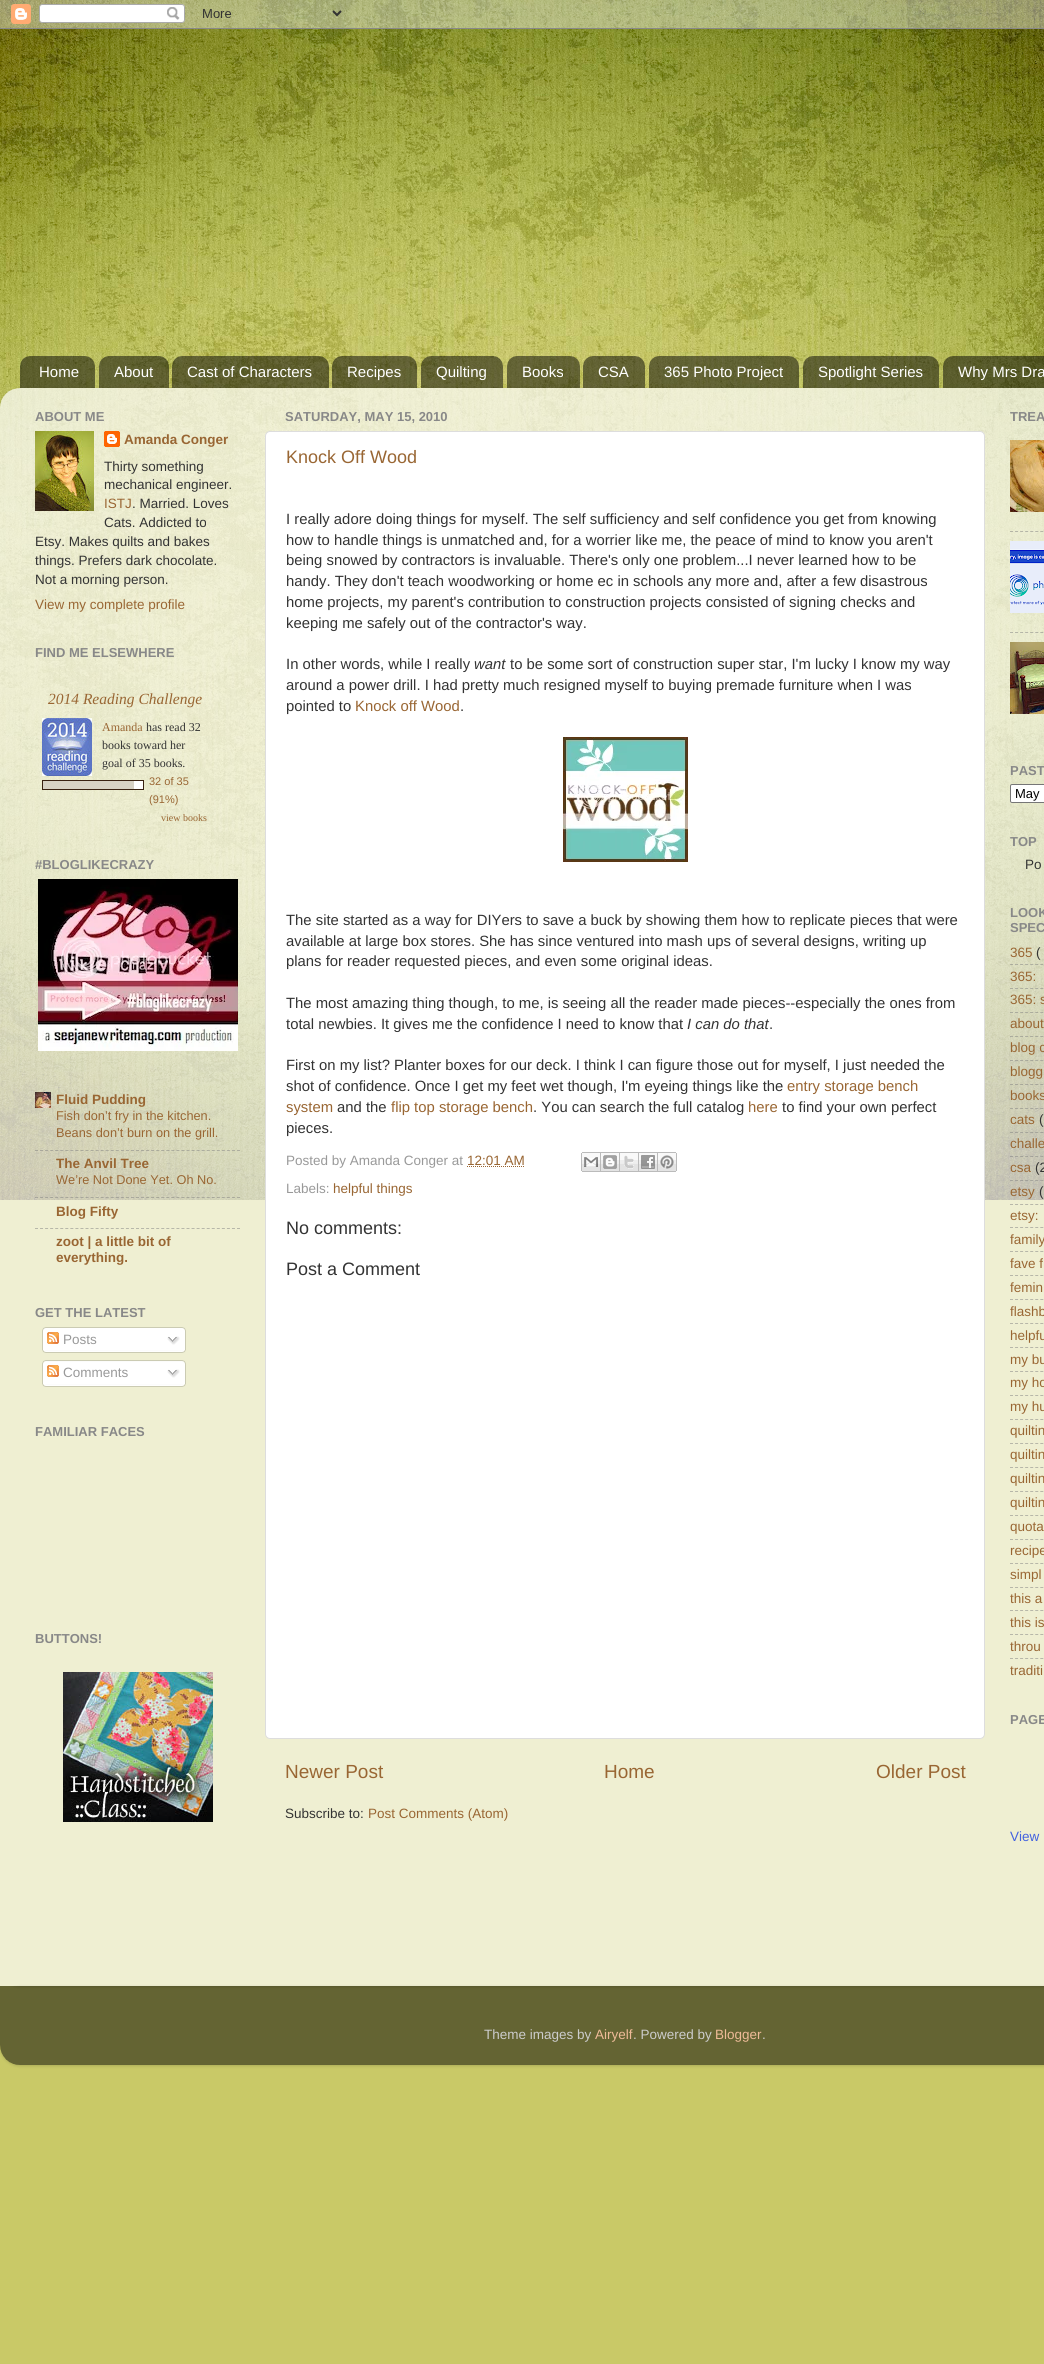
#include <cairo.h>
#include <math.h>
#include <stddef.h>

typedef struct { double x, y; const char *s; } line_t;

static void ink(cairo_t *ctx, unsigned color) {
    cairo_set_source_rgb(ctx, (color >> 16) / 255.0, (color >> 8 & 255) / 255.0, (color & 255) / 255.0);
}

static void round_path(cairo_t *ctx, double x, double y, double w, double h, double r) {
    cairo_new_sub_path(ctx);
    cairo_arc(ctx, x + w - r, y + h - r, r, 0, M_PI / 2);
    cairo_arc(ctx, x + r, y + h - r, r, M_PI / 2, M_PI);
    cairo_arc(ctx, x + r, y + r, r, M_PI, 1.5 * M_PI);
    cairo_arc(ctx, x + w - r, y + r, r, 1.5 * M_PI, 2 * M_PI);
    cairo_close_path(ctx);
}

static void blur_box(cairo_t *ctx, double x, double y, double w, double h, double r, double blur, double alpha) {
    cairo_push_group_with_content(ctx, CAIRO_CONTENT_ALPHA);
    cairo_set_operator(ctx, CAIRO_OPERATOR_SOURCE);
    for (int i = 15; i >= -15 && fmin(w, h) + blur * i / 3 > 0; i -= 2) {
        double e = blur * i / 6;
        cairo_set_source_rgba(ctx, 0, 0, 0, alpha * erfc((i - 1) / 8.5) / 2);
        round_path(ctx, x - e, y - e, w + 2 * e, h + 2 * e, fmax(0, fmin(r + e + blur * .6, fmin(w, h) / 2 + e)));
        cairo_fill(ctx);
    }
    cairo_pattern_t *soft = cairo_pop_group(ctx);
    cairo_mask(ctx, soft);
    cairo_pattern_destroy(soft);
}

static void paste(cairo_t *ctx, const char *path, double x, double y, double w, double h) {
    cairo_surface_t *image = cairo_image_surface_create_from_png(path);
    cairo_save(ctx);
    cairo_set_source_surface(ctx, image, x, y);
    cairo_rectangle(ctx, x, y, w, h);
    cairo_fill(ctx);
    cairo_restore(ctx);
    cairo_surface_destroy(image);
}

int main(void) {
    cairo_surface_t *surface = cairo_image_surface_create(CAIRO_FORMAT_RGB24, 1044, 2364);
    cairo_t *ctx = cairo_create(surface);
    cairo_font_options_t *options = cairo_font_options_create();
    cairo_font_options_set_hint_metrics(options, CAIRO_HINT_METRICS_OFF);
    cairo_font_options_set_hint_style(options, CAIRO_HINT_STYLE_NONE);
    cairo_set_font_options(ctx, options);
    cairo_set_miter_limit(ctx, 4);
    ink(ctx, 0xC9C967);
    cairo_paint(ctx);
    paste(ctx, "media/1.png", 0, 0, 1044, 1200);
    paste(ctx, "media/2.png", 0, 0, 1044, 29);
    paste(ctx, "media/3.png", 20, 356, 75, 32);
    cairo_select_font_face(ctx, "Liberation Sans", CAIRO_FONT_SLANT_NORMAL, CAIRO_FONT_WEIGHT_NORMAL);
    cairo_set_font_size(ctx, 15);
    ink(ctx, 0xFFFFFF);
    cairo_move_to(ctx, 39, 377);
    cairo_show_text(ctx, "Home");
    paste(ctx, "media/4.png", 99, 356, 70, 32);
    cairo_move_to(ctx, 114, 377);
    cairo_show_text(ctx, "About");
    paste(ctx, "media/5.png", 172, 356, 157, 32);
    cairo_move_to(ctx, 187, 377);
    cairo_show_text(ctx, "Cast of Characters");
    paste(ctx, "media/6.png", 332, 356, 85, 32);
    cairo_move_to(ctx, 347, 377);
    cairo_show_text(ctx, "Recipes");
    paste(ctx, "media/7.png", 421, 356, 82, 32);
    cairo_move_to(ctx, 436, 377);
    cairo_show_text(ctx, "Quilting");
    paste(ctx, "media/8.png", 507, 356, 73, 32);
    cairo_move_to(ctx, 522, 377);
    cairo_show_text(ctx, "Books");
    paste(ctx, "media/9.png", 583, 356, 62, 32);
    cairo_move_to(ctx, 598, 377);
    cairo_show_text(ctx, "CSA");
    paste(ctx, "media/10.png", 649, 356, 150, 32);
    cairo_move_to(ctx, 664, 377);
    cairo_show_text(ctx, "365 Photo Project");
    paste(ctx, "media/11.png", 803, 356, 136, 32);
    cairo_move_to(ctx, 818, 377);
    cairo_show_text(ctx, "Spotlight Series");
    paste(ctx, "media/12.png", 943, 356, 101, 32);
    cairo_move_to(ctx, 958, 377);
    cairo_show_text(ctx, "Why Mrs Dra");
    cairo_save(ctx);
    cairo_set_fill_rule(ctx, CAIRO_FILL_RULE_EVEN_ODD);
    cairo_new_path(ctx);
    cairo_move_to(ctx, 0, 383);
    cairo_line_to(ctx, 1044, 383);
    cairo_line_to(ctx, 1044, 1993);
    cairo_line_to(ctx, 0, 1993);
    cairo_close_path(ctx);
    cairo_move_to(ctx, 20, 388);
    cairo_line_to(ctx, 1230, 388);
    cairo_curve_to(ctx, 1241, 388, 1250, 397, 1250, 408);
    cairo_line_to(ctx, 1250, 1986);
    cairo_line_to(ctx, 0, 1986);
    cairo_line_to(ctx, 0, 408);
    cairo_curve_to(ctx, 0, 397, 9, 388, 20, 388);
    cairo_close_path(ctx);
    cairo_clip(ctx);
    ink(ctx, 0x000000);
    blur_box(ctx, 0, 389, 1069, 1598, 20, 1.5, 0.15);
    cairo_restore(ctx);
    paste(ctx, "media/13.png", 0, 388, 1044, 1598);
    cairo_select_font_face(ctx, "Liberation Sans", CAIRO_FONT_SLANT_NORMAL, CAIRO_FONT_WEIGHT_BOLD);
    cairo_set_font_size(ctx, 13);
    ink(ctx, 0x888888);
    cairo_move_to(ctx, 35, 421);
    cairo_show_text(ctx, "ABOUT ME");
    paste(ctx, "media/14.png", 35, 431, 59, 80);
    paste(ctx, "media/15.png", 104, 431, 16, 16);
    cairo_set_font_size(ctx, 13.5);
    ink(ctx, 0x996633);
    cairo_move_to(ctx, 124, 444);
    cairo_show_text(ctx, "Amanda Conger");
    cairo_select_font_face(ctx, "Liberation Sans", CAIRO_FONT_SLANT_NORMAL, CAIRO_FONT_WEIGHT_NORMAL);
    ink(ctx, 0x333333);
    cairo_move_to(ctx, 104, 471);
    cairo_show_text(ctx, "Thirty something");
    cairo_move_to(ctx, 104, 489);
    cairo_show_text(ctx, "mechanical engineer.");
    ink(ctx, 0x996633);
    cairo_move_to(ctx, 104, 508);
    cairo_show_text(ctx, "ISTJ");
    ink(ctx, 0x333333);
    {
        static const line_t items[] = {
            {132, 508, ". Married. Loves"},
            {104, 527, "Cats. Addicted to"},
            {35, 546, "Etsy. Makes quilts and bakes"},
            {35, 565, "things. Prefers dark chocolate."},
            {35, 584, "Not a morning person."},
        };
        for (size_t i = 0; i < sizeof items / sizeof *items; i++) {
            cairo_move_to(ctx, items[i].x, items[i].y);
            cairo_show_text(ctx, items[i].s);
        }
    }
    ink(ctx, 0x996633);
    cairo_move_to(ctx, 35, 609);
    cairo_show_text(ctx, "View my complete profile");
    cairo_select_font_face(ctx, "Liberation Sans", CAIRO_FONT_SLANT_NORMAL, CAIRO_FONT_WEIGHT_BOLD);
    cairo_set_font_size(ctx, 13);
    ink(ctx, 0x888888);
    cairo_move_to(ctx, 35, 657);
    cairo_show_text(ctx, "FIND ME ELSEWHERE");
    cairo_select_font_face(ctx, "Liberation Serif", CAIRO_FONT_SLANT_ITALIC, CAIRO_FONT_WEIGHT_NORMAL);
    cairo_set_font_size(ctx, 15.5);
    ink(ctx, 0x996633);
    cairo_move_to(ctx, 48, 704);
    cairo_show_text(ctx, "2014 Reading Challenge");
    paste(ctx, "media/16.png", 42, 718, 50, 58);
    cairo_select_font_face(ctx, "Liberation Serif", CAIRO_FONT_SLANT_NORMAL, CAIRO_FONT_WEIGHT_NORMAL);
    cairo_set_font_size(ctx, 12);
    cairo_move_to(ctx, 102, 731);
    cairo_show_text(ctx, "Amanda");
    ink(ctx, 0x333333);
    {
        static const line_t items[] = {
            {146, 731, "has read 32"},
            {102, 749, "books toward her"},
            {102, 767, "goal of 35 books."},
        };
        for (size_t i = 0; i < sizeof items / sizeof *items; i++) {
            cairo_move_to(ctx, items[i].x, items[i].y);
            cairo_show_text(ctx, items[i].s);
        }
    }
    ink(ctx, 0xFFFFFF);
    cairo_rectangle(ctx, 134, 781, 9, 8);
    cairo_fill(ctx);
    cairo_rectangle(ctx, 42.5, 780.5, 101, 9);
    ink(ctx, 0x382110);
    cairo_set_line_width(ctx, 1);
    cairo_stroke(ctx);
    ink(ctx, 0xD7D2C4);
    cairo_rectangle(ctx, 43, 781, 91, 8);
    cairo_fill(ctx);
    cairo_select_font_face(ctx, "Liberation Sans", CAIRO_FONT_SLANT_NORMAL, CAIRO_FONT_WEIGHT_NORMAL);
    cairo_set_font_size(ctx, 11);
    ink(ctx, 0x996633);
    cairo_move_to(ctx, 149, 785);
    cairo_show_text(ctx, "32 of 35");
    cairo_move_to(ctx, 149, 803);
    cairo_show_text(ctx, "(91%)");
    cairo_select_font_face(ctx, "Liberation Serif", CAIRO_FONT_SLANT_NORMAL, CAIRO_FONT_WEIGHT_NORMAL);
    cairo_set_font_size(ctx, 10);
    cairo_move_to(ctx, 161, 821);
    cairo_show_text(ctx, "view books");
    cairo_select_font_face(ctx, "Liberation Sans", CAIRO_FONT_SLANT_NORMAL, CAIRO_FONT_WEIGHT_BOLD);
    cairo_set_font_size(ctx, 13);
    ink(ctx, 0x888888);
    cairo_move_to(ctx, 35, 869);
    cairo_show_text(ctx, "#BLOGLIKECRAZY");
    paste(ctx, "media/17.png", 38, 879, 200, 172);
    paste(ctx, "media/18.png", 35, 1092, 16, 16);
    cairo_set_font_size(ctx, 13.5);
    ink(ctx, 0x996633);
    cairo_move_to(ctx, 56, 1104);
    cairo_show_text(ctx, "Fluid Pudding");
    cairo_select_font_face(ctx, "Liberation Sans", CAIRO_FONT_SLANT_NORMAL, CAIRO_FONT_WEIGHT_NORMAL);
    cairo_set_font_size(ctx, 12.75);
    cairo_move_to(ctx, 56, 1120);
    cairo_show_text(ctx, "Fish don’t fry in the kitchen.");
    cairo_move_to(ctx, 56, 1137);
    cairo_show_text(ctx, "Beans don’t burn on the grill.");
    cairo_new_path(ctx);
    cairo_move_to(ctx, 35, 1150.5);
    cairo_line_to(ctx, 240, 1150.5);
    cairo_set_source_rgba(ctx, 0.502, 0.502, 0.502, 0.5);
    cairo_set_dash(ctx, (double[]){3, 2.05}, 2, 0);
    cairo_stroke(ctx);
    cairo_select_font_face(ctx, "Liberation Sans", CAIRO_FONT_SLANT_NORMAL, CAIRO_FONT_WEIGHT_BOLD);
    cairo_set_font_size(ctx, 13.5);
    ink(ctx, 0x996633);
    cairo_move_to(ctx, 56, 1168);
    cairo_show_text(ctx, "The Anvil Tree");
    cairo_select_font_face(ctx, "Liberation Sans", CAIRO_FONT_SLANT_NORMAL, CAIRO_FONT_WEIGHT_NORMAL);
    cairo_set_font_size(ctx, 12.75);
    cairo_move_to(ctx, 56, 1184);
    cairo_show_text(ctx, "We’re Not Done Yet. Oh No.");
    cairo_new_path(ctx);
    cairo_move_to(ctx, 35, 1197.5);
    cairo_line_to(ctx, 240, 1197.5);
    cairo_set_source_rgba(ctx, 0.502, 0.502, 0.502, 0.5);
    cairo_stroke(ctx);
    cairo_select_font_face(ctx, "Liberation Sans", CAIRO_FONT_SLANT_NORMAL, CAIRO_FONT_WEIGHT_BOLD);
    cairo_set_font_size(ctx, 13.5);
    ink(ctx, 0x996633);
    cairo_move_to(ctx, 56, 1216);
    cairo_show_text(ctx, "Blog Fifty");
    cairo_new_path(ctx);
    cairo_move_to(ctx, 35, 1228.5);
    cairo_line_to(ctx, 240, 1228.5);
    ink(ctx, 0xB7B7A9);
    cairo_stroke(ctx);
    ink(ctx, 0x996633);
    cairo_move_to(ctx, 56, 1246);
    cairo_show_text(ctx, "zoot | a little bit of");
    cairo_move_to(ctx, 56, 1262);
    cairo_show_text(ctx, "everything.");
    cairo_set_font_size(ctx, 13);
    ink(ctx, 0x888888);
    cairo_move_to(ctx, 35, 1317);
    cairo_show_text(ctx, "GET THE LATEST");
    paste(ctx, "media/19.png", 42, 1327, 144, 23);
    paste(ctx, "media/20.png", 47, 1332, 12, 12);
    cairo_select_font_face(ctx, "Liberation Sans", CAIRO_FONT_SLANT_NORMAL, CAIRO_FONT_WEIGHT_NORMAL);
    cairo_set_font_size(ctx, 13.5);
    ink(ctx, 0x999999);
    cairo_move_to(ctx, 63, 1344);
    cairo_show_text(ctx, "Posts");
    paste(ctx, "media/21.png", 167, 1336, 13, 9);
    paste(ctx, "media/22.png", 42, 1350, 144, 3);
    paste(ctx, "media/23.png", 42, 1360, 144, 24);
    paste(ctx, "media/20.png", 47, 1365, 12, 12);
    cairo_move_to(ctx, 63, 1377);
    cairo_show_text(ctx, "Comments");
    paste(ctx, "media/21.png", 167, 1369, 13, 9);
    paste(ctx, "media/22.png", 42, 1384, 144, 3);
    cairo_select_font_face(ctx, "Liberation Sans", CAIRO_FONT_SLANT_NORMAL, CAIRO_FONT_WEIGHT_BOLD);
    cairo_set_font_size(ctx, 13);
    ink(ctx, 0x888888);
    cairo_move_to(ctx, 35, 1436);
    cairo_show_text(ctx, "FAMILIAR FACES");
    cairo_move_to(ctx, 35, 1643);
    cairo_show_text(ctx, "BUTTONS!");
    paste(ctx, "media/24.png", 63, 1672, 150, 150);
    cairo_move_to(ctx, 285, 421);
    cairo_show_text(ctx, "SATURDAY, MAY 15, 2010");
    ink(ctx, 0xFFFFFF);
    round_path(ctx, 265.5, 431.5, 719, 1307, 4.5);
    cairo_fill_preserve(ctx);
    ink(ctx, 0xDDDDDD);
    cairo_set_dash(ctx, NULL, 0, 0);
    cairo_stroke(ctx);
    cairo_select_font_face(ctx, "Liberation Sans", CAIRO_FONT_SLANT_NORMAL, CAIRO_FONT_WEIGHT_NORMAL);
    cairo_set_font_size(ctx, 18);
    ink(ctx, 0x996633);
    cairo_move_to(ctx, 286, 463);
    cairo_show_text(ctx, "Knock Off Wood");
    cairo_set_font_size(ctx, 14.85);
    ink(ctx, 0x333333);
    {
        static const line_t items[] = {
            {286, 524, "I really adore doing things for myself. The self sufficiency and self confidence you get from knowing"},
            {286, 545, "how to handle things is unmatched and, for a worrier like me, the peace of mind to know you aren't"},
            {286, 565, "being snowed by contractors is invaluable. There's only one problem...I never learned how to be"},
            {286, 586, "handy. They don't teach woodworking or home ec in schools any more and, after a few disastrous"},
            {286, 607, "home projects, my parent's contribution to construction projects consisted of signing checks and"},
            {286, 628, "keeping me safely out of the contractor's way."},
            {286, 669, "In other words, while I really"},
        };
        for (size_t i = 0; i < sizeof items / sizeof *items; i++) {
            cairo_move_to(ctx, items[i].x, items[i].y);
            cairo_show_text(ctx, items[i].s);
        }
    }
    cairo_select_font_face(ctx, "Liberation Sans", CAIRO_FONT_SLANT_ITALIC, CAIRO_FONT_WEIGHT_NORMAL);
    cairo_move_to(ctx, 474, 669);
    cairo_show_text(ctx, "want");
    cairo_select_font_face(ctx, "Liberation Sans", CAIRO_FONT_SLANT_NORMAL, CAIRO_FONT_WEIGHT_NORMAL);
    {
        static const line_t items[] = {
            {510, 669, "to be some sort of construction super star, I'm lucky I know my way"},
            {286, 690, "around a power drill. I had pretty much resigned myself to buying premade furniture when I was"},
            {286, 711, "pointed to"},
        };
        for (size_t i = 0; i < sizeof items / sizeof *items; i++) {
            cairo_move_to(ctx, items[i].x, items[i].y);
            cairo_show_text(ctx, items[i].s);
        }
    }
    ink(ctx, 0x996633);
    cairo_move_to(ctx, 355, 711);
    cairo_show_text(ctx, "Knock off Wood");
    ink(ctx, 0x333333);
    cairo_move_to(ctx, 460, 711);
    cairo_show_text(ctx, ".");
    paste(ctx, "media/25.png", 563, 737, 125, 125);
    {
        static const line_t items[] = {
            {286, 925, "The site started as a way for DIYers to save a buck by showing them how to replicate pieces that were"},
            {286, 946, "available at large box stores. She has since ventured into mash ups of several designs, writing up"},
            {286, 966, "plans for reader requested pieces, and even some original ideas."},
            {286, 1008, "The most amazing thing though, to me, is seeing all the reader made pieces--especially the ones from"},
            {286, 1029, "total newbies. It gives me the confidence I need to know that"},
        };
        for (size_t i = 0; i < sizeof items / sizeof *items; i++) {
            cairo_move_to(ctx, items[i].x, items[i].y);
            cairo_show_text(ctx, items[i].s);
        }
    }
    cairo_select_font_face(ctx, "Liberation Sans", CAIRO_FONT_SLANT_ITALIC, CAIRO_FONT_WEIGHT_NORMAL);
    cairo_move_to(ctx, 687, 1029);
    cairo_show_text(ctx, "I can do that");
    cairo_select_font_face(ctx, "Liberation Sans", CAIRO_FONT_SLANT_NORMAL, CAIRO_FONT_WEIGHT_NORMAL);
    {
        static const line_t items[] = {
            {769, 1029, "."},
            {286, 1070, "First on my list? Planter boxes for our deck. I think I can figure those out for myself, I just needed the"},
            {286, 1091, "shot of confidence. Once I get my feet wet though, I'm eyeing things like the"},
        };
        for (size_t i = 0; i < sizeof items / sizeof *items; i++) {
            cairo_move_to(ctx, items[i].x, items[i].y);
            cairo_show_text(ctx, items[i].s);
        }
    }
    ink(ctx, 0x996633);
    cairo_move_to(ctx, 787, 1091);
    cairo_show_text(ctx, "entry storage bench");
    cairo_move_to(ctx, 286, 1112);
    cairo_show_text(ctx, "system");
    ink(ctx, 0x333333);
    cairo_move_to(ctx, 337, 1112);
    cairo_show_text(ctx, "and the");
    ink(ctx, 0x996633);
    cairo_move_to(ctx, 391, 1112);
    cairo_show_text(ctx, "flip top storage bench");
    ink(ctx, 0x333333);
    cairo_move_to(ctx, 533, 1112);
    cairo_show_text(ctx, ". You can search the full catalog");
    ink(ctx, 0x996633);
    cairo_move_to(ctx, 748, 1112);
    cairo_show_text(ctx, "here");
    ink(ctx, 0x333333);
    cairo_move_to(ctx, 782, 1112);
    cairo_show_text(ctx, "to find your own perfect");
    cairo_move_to(ctx, 286, 1133);
    cairo_show_text(ctx, "pieces.");
    cairo_set_font_size(ctx, 13.5);
    ink(ctx, 0x999999);
    cairo_move_to(ctx, 286, 1165);
    cairo_show_text(ctx, "Posted by Amanda Conger at");
    ink(ctx, 0x996633);
    cairo_move_to(ctx, 467, 1165);
    cairo_show_text(ctx, "12:01 AM");
    cairo_new_path(ctx);
    cairo_move_to(ctx, 467, 1166.5);
    cairo_line_to(ctx, 524.5, 1166.5);
    cairo_set_dash(ctx, (double[]){1, 1}, 2, 0);
    cairo_stroke(ctx);
    paste(ctx, "media/26.png", 581, 1152, 20, 20);
    paste(ctx, "media/27.png", 601, 1152, 19, 20);
    paste(ctx, "media/28.png", 620, 1152, 19, 20);
    paste(ctx, "media/29.png", 639, 1152, 19, 20);
    paste(ctx, "media/30.png", 658, 1152, 19, 20);
    ink(ctx, 0x999999);
    cairo_move_to(ctx, 286, 1193);
    cairo_show_text(ctx, "Labels:");
    ink(ctx, 0x996633);
    cairo_move_to(ctx, 333, 1193);
    cairo_show_text(ctx, "helpful things");
    cairo_set_font_size(ctx, 18);
    ink(ctx, 0x333333);
    cairo_move_to(ctx, 286, 1234);
    cairo_show_text(ctx, "No comments:");
    cairo_move_to(ctx, 286, 1275);
    cairo_show_text(ctx, "Post a Comment");
    cairo_set_font_size(ctx, 19);
    ink(ctx, 0x996633);
    {
        static const line_t items[] = {
            {285, 1778, "Newer Post"},
            {604, 1778, "Home"},
            {876, 1778, "Older Post"},
        };
        for (size_t i = 0; i < sizeof items / sizeof *items; i++) {
            cairo_move_to(ctx, items[i].x, items[i].y);
            cairo_show_text(ctx, items[i].s);
        }
    }
    cairo_set_font_size(ctx, 13.5);
    ink(ctx, 0x333333);
    cairo_move_to(ctx, 285, 1818);
    cairo_show_text(ctx, "Subscribe to:");
    ink(ctx, 0x996633);
    cairo_move_to(ctx, 368, 1818);
    cairo_show_text(ctx, "Post Comments (Atom)");
    cairo_select_font_face(ctx, "Liberation Sans", CAIRO_FONT_SLANT_NORMAL, CAIRO_FONT_WEIGHT_BOLD);
    cairo_set_font_size(ctx, 13);
    ink(ctx, 0x888888);
    cairo_move_to(ctx, 1010, 421);
    cairo_show_text(ctx, "TREA");
    paste(ctx, "media/31.png", 1010, 440, 34, 72);
    cairo_new_path(ctx);
    cairo_move_to(ctx, 1010, 531.5);
    cairo_line_to(ctx, 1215, 531.5);
    cairo_set_source_rgba(ctx, 0.502, 0.502, 0.502, 0.5);
    cairo_set_dash(ctx, (double[]){3, 2.05}, 2, 0);
    cairo_stroke(ctx);
    paste(ctx, "media/32.png", 1010, 541, 34, 72);
    cairo_new_path(ctx);
    cairo_move_to(ctx, 1010, 632.5);
    cairo_line_to(ctx, 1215, 632.5);
    cairo_stroke(ctx);
    paste(ctx, "media/33.png", 1010, 642, 34, 72);
    ink(ctx, 0x888888);
    cairo_move_to(ctx, 1010, 775);
    cairo_show_text(ctx, "PAST");
    ink(ctx, 0xFFFFFF);
    round_path(ctx, 1010.5, 784.5, 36, 18, 1.5);
    cairo_fill_preserve(ctx);
    ink(ctx, 0x767676);
    cairo_set_dash(ctx, NULL, 0, 0);
    cairo_stroke(ctx);
    cairo_select_font_face(ctx, "Liberation Sans", CAIRO_FONT_SLANT_NORMAL, CAIRO_FONT_WEIGHT_NORMAL);
    ink(ctx, 0x000000);
    cairo_move_to(ctx, 1015, 798);
    cairo_show_text(ctx, "May");
    cairo_select_font_face(ctx, "Liberation Sans", CAIRO_FONT_SLANT_NORMAL, CAIRO_FONT_WEIGHT_BOLD);
    ink(ctx, 0x888888);
    cairo_move_to(ctx, 1010, 846);
    cairo_show_text(ctx, "TOP");
    cairo_select_font_face(ctx, "Liberation Sans", CAIRO_FONT_SLANT_NORMAL, CAIRO_FONT_WEIGHT_NORMAL);
    cairo_set_font_size(ctx, 13.5);
    ink(ctx, 0x333333);
    cairo_move_to(ctx, 1025, 869);
    cairo_show_text(ctx, "Po");
    cairo_select_font_face(ctx, "Liberation Sans", CAIRO_FONT_SLANT_NORMAL, CAIRO_FONT_WEIGHT_BOLD);
    cairo_set_font_size(ctx, 13);
    ink(ctx, 0x888888);
    cairo_move_to(ctx, 1010, 917);
    cairo_show_text(ctx, "LOOK");
    cairo_move_to(ctx, 1010, 932);
    cairo_show_text(ctx, "SPEC");
    cairo_select_font_face(ctx, "Liberation Sans", CAIRO_FONT_SLANT_NORMAL, CAIRO_FONT_WEIGHT_NORMAL);
    cairo_set_font_size(ctx, 13.5);
    ink(ctx, 0x996633);
    cairo_move_to(ctx, 1010, 957);
    cairo_show_text(ctx, "365");
    ink(ctx, 0x333333);
    cairo_move_to(ctx, 1036, 957);
    cairo_show_text(ctx, "(");
    cairo_new_path(ctx);
    cairo_move_to(ctx, 1010, 964.5);
    cairo_line_to(ctx, 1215, 964.5);
    cairo_move_to(ctx, 1010, 988.5);
    cairo_line_to(ctx, 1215, 988.5);
    cairo_move_to(ctx, 1010, 1012.5);
    cairo_line_to(ctx, 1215, 1012.5);
    cairo_set_source_rgba(ctx, 0.502, 0.502, 0.502, 0.5);
    cairo_set_dash(ctx, (double[]){3, 2.05}, 2, 0);
    cairo_stroke(ctx);
    ink(ctx, 0x996633);
    {
        static const line_t items[] = {
            {1010, 981, "365:"},
            {1010, 1004, "365: s"},
            {1010, 1028, "about"},
        };
        for (size_t i = 0; i < sizeof items / sizeof *items; i++) {
            cairo_move_to(ctx, items[i].x, items[i].y);
            cairo_show_text(ctx, items[i].s);
        }
    }
    cairo_new_path(ctx);
    cairo_move_to(ctx, 1010, 1036.5);
    cairo_line_to(ctx, 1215, 1036.5);
    cairo_move_to(ctx, 1010, 1060.5);
    cairo_line_to(ctx, 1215, 1060.5);
    cairo_move_to(ctx, 1010, 1084.5);
    cairo_line_to(ctx, 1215, 1084.5);
    cairo_set_source_rgba(ctx, 0.502, 0.502, 0.502, 0.5);
    cairo_stroke(ctx);
    ink(ctx, 0x996633);
    {
        static const line_t items[] = {
            {1010, 1052, "blog c"},
            {1010, 1076, "blogg"},
            {1010, 1100, "books"},
        };
        for (size_t i = 0; i < sizeof items / sizeof *items; i++) {
            cairo_move_to(ctx, items[i].x, items[i].y);
            cairo_show_text(ctx, items[i].s);
        }
    }
    cairo_new_path(ctx);
    cairo_move_to(ctx, 1010, 1108.5);
    cairo_line_to(ctx, 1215, 1108.5);
    cairo_move_to(ctx, 1010, 1132.5);
    cairo_line_to(ctx, 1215, 1132.5);
    cairo_move_to(ctx, 1010, 1156.5);
    cairo_line_to(ctx, 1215, 1156.5);
    cairo_set_source_rgba(ctx, 0.502, 0.502, 0.502, 0.5);
    cairo_stroke(ctx);
    ink(ctx, 0x996633);
    cairo_move_to(ctx, 1010, 1124);
    cairo_show_text(ctx, "cats");
    ink(ctx, 0x333333);
    cairo_move_to(ctx, 1039, 1124);
    cairo_show_text(ctx, "(");
    ink(ctx, 0x996633);
    cairo_move_to(ctx, 1010, 1148);
    cairo_show_text(ctx, "challe");
    cairo_move_to(ctx, 1010, 1172);
    cairo_show_text(ctx, "csa");
    ink(ctx, 0x333333);
    cairo_move_to(ctx, 1035, 1172);
    cairo_show_text(ctx, "(2");
    cairo_new_path(ctx);
    cairo_move_to(ctx, 1010, 1180.5);
    cairo_line_to(ctx, 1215, 1180.5);
    cairo_set_source_rgba(ctx, 0.502, 0.502, 0.502, 0.5);
    cairo_stroke(ctx);
    ink(ctx, 0x996633);
    cairo_move_to(ctx, 1010, 1196);
    cairo_show_text(ctx, "etsy");
    ink(ctx, 0x333333);
    cairo_move_to(ctx, 1039, 1196);
    cairo_show_text(ctx, "(");
    cairo_new_path(ctx);
    cairo_move_to(ctx, 1010, 1204.5);
    cairo_line_to(ctx, 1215, 1204.5);
    cairo_move_to(ctx, 1010, 1227.5);
    cairo_line_to(ctx, 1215, 1227.5);
    cairo_move_to(ctx, 1010, 1251.5);
    cairo_line_to(ctx, 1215, 1251.5);
    ink(ctx, 0xB7B7A9);
    cairo_stroke(ctx);
    ink(ctx, 0x996633);
    {
        static const line_t items[] = {
            {1010, 1220, "etsy:"},
            {1010, 1244, "family"},
            {1010, 1268, "fave f"},
        };
        for (size_t i = 0; i < sizeof items / sizeof *items; i++) {
            cairo_move_to(ctx, items[i].x, items[i].y);
            cairo_show_text(ctx, items[i].s);
        }
    }
    cairo_new_path(ctx);
    cairo_move_to(ctx, 1010, 1275.5);
    cairo_line_to(ctx, 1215, 1275.5);
    cairo_move_to(ctx, 1010, 1299.5);
    cairo_line_to(ctx, 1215, 1299.5);
    cairo_move_to(ctx, 1010, 1323.5);
    cairo_line_to(ctx, 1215, 1323.5);
    ink(ctx, 0xB7B7A9);
    cairo_stroke(ctx);
    ink(ctx, 0x996633);
    {
        static const line_t items[] = {
            {1010, 1292, "femin"},
            {1010, 1316, "flashb"},
            {1010, 1340, "helpfu"},
        };
        for (size_t i = 0; i < sizeof items / sizeof *items; i++) {
            cairo_move_to(ctx, items[i].x, items[i].y);
            cairo_show_text(ctx, items[i].s);
        }
    }
    cairo_new_path(ctx);
    cairo_move_to(ctx, 1010, 1347.5);
    cairo_line_to(ctx, 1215, 1347.5);
    cairo_move_to(ctx, 1010, 1371.5);
    cairo_line_to(ctx, 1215, 1371.5);
    cairo_move_to(ctx, 1010, 1395.5);
    cairo_line_to(ctx, 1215, 1395.5);
    ink(ctx, 0xB7B7A9);
    cairo_stroke(ctx);
    ink(ctx, 0x996633);
    {
        static const line_t items[] = {
            {1010, 1364, "my bu"},
            {1010, 1387, "my ho"},
            {1010, 1411, "my hu"},
        };
        for (size_t i = 0; i < sizeof items / sizeof *items; i++) {
            cairo_move_to(ctx, items[i].x, items[i].y);
            cairo_show_text(ctx, items[i].s);
        }
    }
    cairo_new_path(ctx);
    cairo_move_to(ctx, 1010, 1419.5);
    cairo_line_to(ctx, 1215, 1419.5);
    cairo_move_to(ctx, 1010, 1443.5);
    cairo_line_to(ctx, 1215, 1443.5);
    cairo_move_to(ctx, 1010, 1467.5);
    cairo_line_to(ctx, 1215, 1467.5);
    ink(ctx, 0xB7B7A9);
    cairo_stroke(ctx);
    ink(ctx, 0x996633);
    {
        static const line_t items[] = {
            {1010, 1435, "quiltin"},
            {1010, 1459, "quiltin"},
            {1010, 1483, "quiltin"},
        };
        for (size_t i = 0; i < sizeof items / sizeof *items; i++) {
            cairo_move_to(ctx, items[i].x, items[i].y);
            cairo_show_text(ctx, items[i].s);
        }
    }
    cairo_new_path(ctx);
    cairo_move_to(ctx, 1010, 1491.5);
    cairo_line_to(ctx, 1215, 1491.5);
    cairo_move_to(ctx, 1010, 1515.5);
    cairo_line_to(ctx, 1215, 1515.5);
    cairo_move_to(ctx, 1010, 1539.5);
    cairo_line_to(ctx, 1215, 1539.5);
    ink(ctx, 0xB7B7A9);
    cairo_stroke(ctx);
    ink(ctx, 0x996633);
    {
        static const line_t items[] = {
            {1010, 1507, "quiltin"},
            {1010, 1531, "quota"},
            {1010, 1555, "recipe"},
        };
        for (size_t i = 0; i < sizeof items / sizeof *items; i++) {
            cairo_move_to(ctx, items[i].x, items[i].y);
            cairo_show_text(ctx, items[i].s);
        }
    }
    cairo_new_path(ctx);
    cairo_move_to(ctx, 1010, 1563.5);
    cairo_line_to(ctx, 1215, 1563.5);
    cairo_move_to(ctx, 1010, 1587.5);
    cairo_line_to(ctx, 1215, 1587.5);
    cairo_move_to(ctx, 1010, 1610.5);
    cairo_line_to(ctx, 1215, 1610.5);
    ink(ctx, 0xB7B7A9);
    cairo_stroke(ctx);
    ink(ctx, 0x996633);
    {
        static const line_t items[] = {
            {1010, 1579, "simpl"},
            {1010, 1603, "this a"},
            {1010, 1627, "this is"},
        };
        for (size_t i = 0; i < sizeof items / sizeof *items; i++) {
            cairo_move_to(ctx, items[i].x, items[i].y);
            cairo_show_text(ctx, items[i].s);
        }
    }
    cairo_new_path(ctx);
    cairo_move_to(ctx, 1010, 1634.5);
    cairo_line_to(ctx, 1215, 1634.5);
    cairo_move_to(ctx, 1010, 1658.5);
    cairo_line_to(ctx, 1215, 1658.5);
    ink(ctx, 0xB7B7A9);
    cairo_stroke(ctx);
    ink(ctx, 0x996633);
    cairo_move_to(ctx, 1010, 1651);
    cairo_show_text(ctx, "throu");
    cairo_move_to(ctx, 1010, 1675);
    cairo_show_text(ctx, "traditi");
    cairo_select_font_face(ctx, "Liberation Sans", CAIRO_FONT_SLANT_NORMAL, CAIRO_FONT_WEIGHT_BOLD);
    cairo_set_font_size(ctx, 13);
    ink(ctx, 0x888888);
    cairo_move_to(ctx, 1010, 1724);
    cairo_show_text(ctx, "PAGE");
    cairo_select_font_face(ctx, "Liberation Sans", CAIRO_FONT_SLANT_NORMAL, CAIRO_FONT_WEIGHT_NORMAL);
    cairo_set_font_size(ctx, 13.5);
    ink(ctx, 0x4261DF);
    cairo_move_to(ctx, 1010, 1841);
    cairo_show_text(ctx, "View");
    cairo_save(ctx);
    cairo_set_fill_rule(ctx, CAIRO_FILL_RULE_EVEN_ODD);
    cairo_new_path(ctx);
    cairo_move_to(ctx, 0, 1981);
    cairo_line_to(ctx, 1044, 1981);
    cairo_line_to(ctx, 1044, 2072);
    cairo_line_to(ctx, 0, 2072);
    cairo_close_path(ctx);
    cairo_move_to(ctx, 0, 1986);
    cairo_line_to(ctx, 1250, 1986);
    cairo_line_to(ctx, 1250, 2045);
    cairo_curve_to(ctx, 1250, 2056, 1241, 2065, 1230, 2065);
    cairo_line_to(ctx, 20, 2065);
    cairo_curve_to(ctx, 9, 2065, 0, 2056, 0, 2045);
    cairo_close_path(ctx);
    cairo_clip(ctx);
    ink(ctx, 0x000000);
    blur_box(ctx, 0, 1987, 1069, 79, 20, 1.5, 0.15);
    cairo_restore(ctx);
    paste(ctx, "media/34.png", 0, 1986, 1044, 79);
    ink(ctx, 0xCCCCCC);
    cairo_move_to(ctx, 484, 2039);
    cairo_show_text(ctx, "Theme images by");
    ink(ctx, 0xEEBB98);
    cairo_move_to(ctx, 595, 2039);
    cairo_show_text(ctx, "Airyelf");
    ink(ctx, 0xCCCCCC);
    cairo_move_to(ctx, 633, 2039);
    cairo_show_text(ctx, ". Powered by");
    ink(ctx, 0xEEBB98);
    cairo_move_to(ctx, 715, 2039);
    cairo_show_text(ctx, "Blogger");
    ink(ctx, 0xCCCCCC);
    cairo_move_to(ctx, 762, 2039);
    cairo_show_text(ctx, ".");
    cairo_surface_write_to_png(surface, "image.png");
    cairo_font_options_destroy(options);
    cairo_destroy(ctx);
    cairo_surface_destroy(surface);
    return 0;
}
